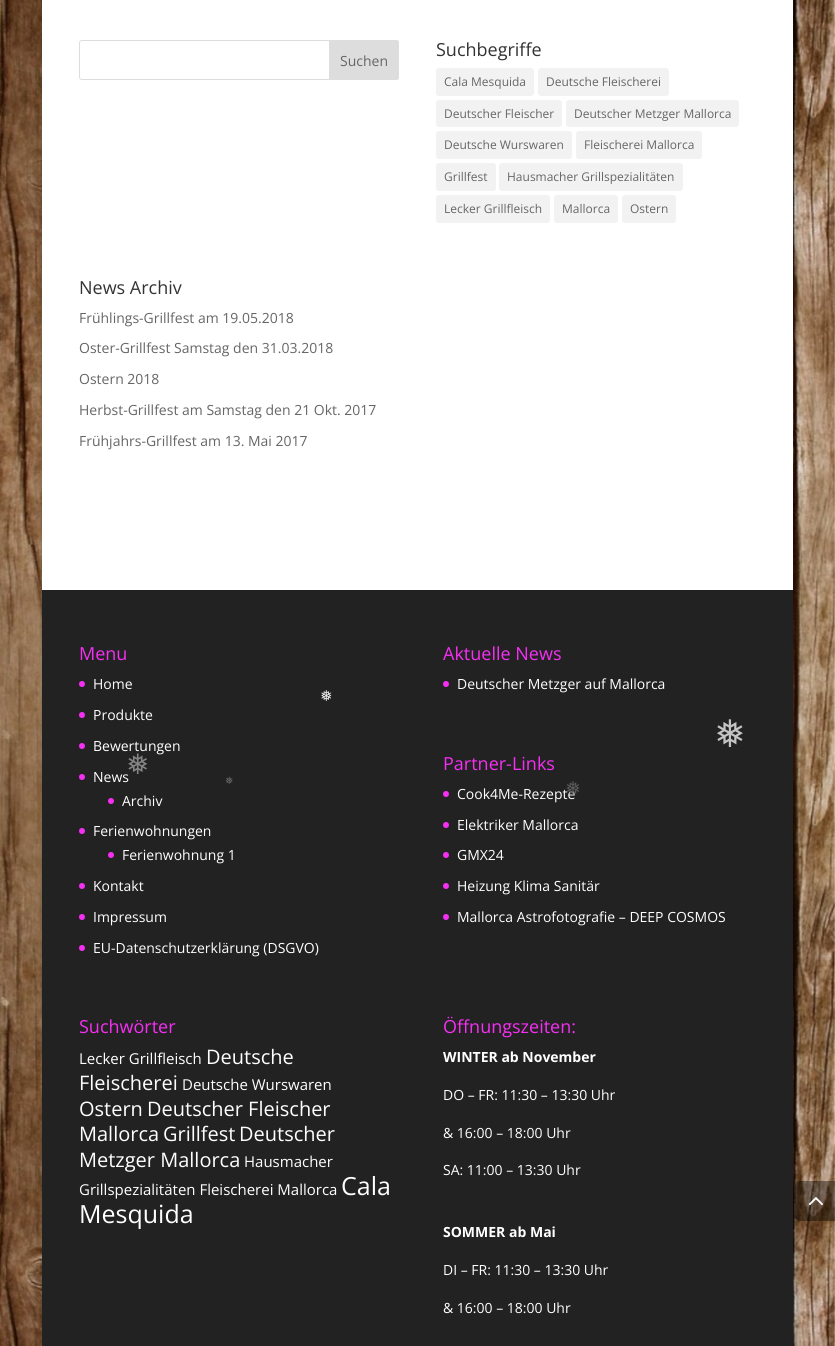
#include <cairo.h>
#include <math.h>
#include <stddef.h>

typedef struct { double x, y; const char *s; } line_t;

static void ink(cairo_t *ctx, unsigned color) {
    cairo_set_source_rgb(ctx, (color >> 16) / 255.0, (color >> 8 & 255) / 255.0, (color & 255) / 255.0);
}

static void round_path(cairo_t *ctx, double x, double y, double w, double h, double r) {
    cairo_new_sub_path(ctx);
    cairo_arc(ctx, x + w - r, y + h - r, r, 0, M_PI / 2);
    cairo_arc(ctx, x + r, y + h - r, r, M_PI / 2, M_PI);
    cairo_arc(ctx, x + r, y + r, r, M_PI, 1.5 * M_PI);
    cairo_arc(ctx, x + w - r, y + r, r, 1.5 * M_PI, 2 * M_PI);
    cairo_close_path(ctx);
}

static void blur_box(cairo_t *ctx, double x, double y, double w, double h, double r, double blur, double alpha) {
    cairo_push_group_with_content(ctx, CAIRO_CONTENT_ALPHA);
    cairo_set_operator(ctx, CAIRO_OPERATOR_SOURCE);
    for (int i = 15; i >= -15 && fmin(w, h) + blur * i / 3 > 0; i -= 2) {
        double e = blur * i / 6;
        cairo_set_source_rgba(ctx, 0, 0, 0, alpha * erfc((i - 1) / 8.5) / 2);
        round_path(ctx, x - e, y - e, w + 2 * e, h + 2 * e, fmax(0, fmin(r + e + blur * .6, fmin(w, h) / 2 + e)));
        cairo_fill(ctx);
    }
    cairo_pattern_t *soft = cairo_pop_group(ctx);
    cairo_mask(ctx, soft);
    cairo_pattern_destroy(soft);
}

static void paste(cairo_t *ctx, const char *path, double x, double y, double w, double h) {
    cairo_surface_t *image = cairo_image_surface_create_from_png(path);
    cairo_save(ctx);
    cairo_set_source_surface(ctx, image, x, y);
    cairo_rectangle(ctx, x, y, w, h);
    cairo_fill(ctx);
    cairo_restore(ctx);
    cairo_surface_destroy(image);
}

int main(void) {
    cairo_surface_t *surface = cairo_image_surface_create(CAIRO_FORMAT_RGB24, 835, 1346);
    cairo_t *ctx = cairo_create(surface);
    cairo_font_options_t *options = cairo_font_options_create();
    cairo_font_options_set_hint_metrics(options, CAIRO_HINT_METRICS_OFF);
    cairo_font_options_set_hint_style(options, CAIRO_HINT_STYLE_NONE);
    cairo_set_font_options(ctx, options);
    cairo_set_miter_limit(ctx, 4);
    ink(ctx, 0xFFFFFF);
    cairo_paint(ctx);
    paste(ctx, "media/1.png", 0, 0, 835, 1346);
    ink(ctx, 0x000000);
    blur_box(ctx, 42, -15, 751, 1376, 0, 5, 0.2);
    ink(ctx, 0xFFFFFF);
    cairo_rectangle(ctx, 42, 0, 751, 590);
    cairo_fill(ctx);
    round_path(ctx, 79.5, 40.5, 319, 39, 2.5);
    ink(ctx, 0xDDDDDD);
    cairo_set_line_width(ctx, 1);
    cairo_stroke(ctx);
    cairo_new_path(ctx);
    cairo_move_to(ctx, 329.5, 40.5);
    cairo_line_to(ctx, 396, 40.5);
    cairo_curve_to(ctx, 397.5, 40.5, 398.5, 41.5, 398.5, 43);
    cairo_line_to(ctx, 398.5, 77);
    cairo_curve_to(ctx, 398.5, 78.5, 397.5, 79.5, 396, 79.5);
    cairo_line_to(ctx, 329.5, 79.5);
    cairo_close_path(ctx);
    cairo_fill_preserve(ctx);
    cairo_stroke(ctx);
    cairo_select_font_face(ctx, "Open Sans", CAIRO_FONT_SLANT_NORMAL, CAIRO_FONT_WEIGHT_NORMAL);
    cairo_set_font_size(ctx, 14);
    ink(ctx, 0x666666);
    cairo_move_to(ctx, 340, 66);
    cairo_show_text(ctx, "Suchen");
    cairo_set_font_size(ctx, 18);
    ink(ctx, 0x333333);
    cairo_move_to(ctx, 436, 56);
    cairo_show_text(ctx, "Suchbegriffe");
    ink(ctx, 0xF2F2F2);
    round_path(ctx, 436, 68, 98, 28, 3);
    cairo_fill(ctx);
    cairo_set_font_size(ctx, 12);
    ink(ctx, 0x666666);
    cairo_move_to(ctx, 444, 86);
    cairo_show_text(ctx, "Cala Mesquida");
    ink(ctx, 0xF2F2F2);
    round_path(ctx, 538, 68, 131, 28, 3);
    cairo_fill(ctx);
    ink(ctx, 0x666666);
    cairo_move_to(ctx, 546, 86);
    cairo_show_text(ctx, "Deutsche Fleischerei");
    ink(ctx, 0xF2F2F2);
    round_path(ctx, 436, 100, 126, 27, 3);
    cairo_fill(ctx);
    ink(ctx, 0x666666);
    cairo_move_to(ctx, 444, 118);
    cairo_show_text(ctx, "Deutscher Fleischer");
    ink(ctx, 0xF2F2F2);
    round_path(ctx, 566, 100, 173, 27, 3);
    cairo_fill(ctx);
    ink(ctx, 0x666666);
    cairo_move_to(ctx, 574, 118);
    cairo_show_text(ctx, "Deutscher Metzger Mallorca");
    ink(ctx, 0xF2F2F2);
    round_path(ctx, 436, 131, 136, 28, 3);
    cairo_fill(ctx);
    ink(ctx, 0x666666);
    cairo_move_to(ctx, 444, 149);
    cairo_show_text(ctx, "Deutsche Wurswaren");
    ink(ctx, 0xF2F2F2);
    round_path(ctx, 576, 131, 126, 28, 3);
    cairo_fill(ctx);
    ink(ctx, 0x666666);
    cairo_move_to(ctx, 584, 149);
    cairo_show_text(ctx, "Fleischerei Mallorca");
    ink(ctx, 0xF2F2F2);
    round_path(ctx, 436, 163, 60, 28, 3);
    cairo_fill(ctx);
    ink(ctx, 0x666666);
    cairo_move_to(ctx, 444, 181);
    cairo_show_text(ctx, "Grillfest");
    ink(ctx, 0xF2F2F2);
    round_path(ctx, 499, 163, 184, 28, 3);
    cairo_fill(ctx);
    ink(ctx, 0x666666);
    cairo_move_to(ctx, 507, 181);
    cairo_show_text(ctx, "Hausmacher Grillspezialitäten");
    ink(ctx, 0xF2F2F2);
    round_path(ctx, 436, 195, 114, 28, 3);
    cairo_fill(ctx);
    ink(ctx, 0x666666);
    cairo_move_to(ctx, 444, 213);
    cairo_show_text(ctx, "Lecker Grillfleisch");
    ink(ctx, 0xF2F2F2);
    round_path(ctx, 554, 195, 64, 28, 3);
    cairo_fill(ctx);
    ink(ctx, 0x666666);
    cairo_move_to(ctx, 562, 213);
    cairo_show_text(ctx, "Mallorca");
    ink(ctx, 0xF2F2F2);
    round_path(ctx, 622, 195, 54, 28, 3);
    cairo_fill(ctx);
    ink(ctx, 0x666666);
    cairo_move_to(ctx, 630, 213);
    cairo_show_text(ctx, "Ostern");
    cairo_set_font_size(ctx, 18);
    ink(ctx, 0x333333);
    cairo_move_to(ctx, 79, 294);
    cairo_show_text(ctx, "News Archiv");
    cairo_set_font_size(ctx, 14);
    ink(ctx, 0x666666);
    {
        static const line_t items[] = {
            {79, 323, "Frühlings-Grillfest am 19.05.2018"},
            {79, 353, "Oster-Grillfest Samstag den 31.03.2018"},
            {79, 384, "Ostern 2018"},
            {79, 415, "Herbst-Grillfest am Samstag den 21 Okt. 2017"},
            {79, 446, "Frühjahrs-Grillfest am 13. Mai 2017"},
        };
        for (size_t i = 0; i < sizeof items / sizeof *items; i++) {
            cairo_move_to(ctx, items[i].x, items[i].y);
            cairo_show_text(ctx, items[i].s);
        }
    }
    ink(ctx, 0x222222);
    cairo_rectangle(ctx, 42, 590, 751, 756);
    cairo_fill(ctx);
    cairo_set_font_size(ctx, 18);
    ink(ctx, 0xF72EF4);
    cairo_move_to(ctx, 79, 660);
    cairo_show_text(ctx, "Menu");
    cairo_new_path(ctx);
    cairo_arc(ctx, 82, 684, 3, 0, 2 * M_PI);
    cairo_fill(ctx);
    cairo_set_font_size(ctx, 14);
    ink(ctx, 0xFFFFFF);
    cairo_move_to(ctx, 93, 689);
    cairo_show_text(ctx, "Home");
    ink(ctx, 0xF72EF4);
    cairo_new_path(ctx);
    cairo_arc(ctx, 82, 715, 3, 0, 2 * M_PI);
    cairo_fill(ctx);
    ink(ctx, 0xFFFFFF);
    cairo_move_to(ctx, 93, 720);
    cairo_show_text(ctx, "Produkte");
    ink(ctx, 0xF72EF4);
    cairo_new_path(ctx);
    cairo_arc(ctx, 82, 746, 3, 0, 2 * M_PI);
    cairo_fill(ctx);
    ink(ctx, 0xFFFFFF);
    cairo_move_to(ctx, 93, 751);
    cairo_show_text(ctx, "Bewertungen");
    ink(ctx, 0xF72EF4);
    cairo_new_path(ctx);
    cairo_arc(ctx, 82, 777, 3, 0, 2 * M_PI);
    cairo_fill(ctx);
    ink(ctx, 0xFFFFFF);
    cairo_move_to(ctx, 93, 782);
    cairo_show_text(ctx, "News");
    ink(ctx, 0xF72EF4);
    cairo_new_path(ctx);
    cairo_arc(ctx, 111, 801, 3, 0, 2 * M_PI);
    cairo_fill(ctx);
    ink(ctx, 0xFFFFFF);
    cairo_move_to(ctx, 122, 806);
    cairo_show_text(ctx, "Archiv");
    ink(ctx, 0xF72EF4);
    cairo_new_path(ctx);
    cairo_arc(ctx, 82, 831, 3, 0, 2 * M_PI);
    cairo_fill(ctx);
    ink(ctx, 0xFFFFFF);
    cairo_move_to(ctx, 93, 836);
    cairo_show_text(ctx, "Ferienwohnungen");
    ink(ctx, 0xF72EF4);
    cairo_new_path(ctx);
    cairo_arc(ctx, 111, 855, 3, 0, 2 * M_PI);
    cairo_fill(ctx);
    ink(ctx, 0xFFFFFF);
    cairo_move_to(ctx, 122, 860);
    cairo_show_text(ctx, "Ferienwohnung 1");
    ink(ctx, 0xF72EF4);
    cairo_new_path(ctx);
    cairo_arc(ctx, 82, 886, 3, 0, 2 * M_PI);
    cairo_fill(ctx);
    ink(ctx, 0xFFFFFF);
    cairo_move_to(ctx, 93, 891);
    cairo_show_text(ctx, "Kontakt");
    ink(ctx, 0xF72EF4);
    cairo_new_path(ctx);
    cairo_arc(ctx, 82, 917, 3, 0, 2 * M_PI);
    cairo_fill(ctx);
    ink(ctx, 0xFFFFFF);
    cairo_move_to(ctx, 93, 922);
    cairo_show_text(ctx, "Impressum");
    ink(ctx, 0xF72EF4);
    cairo_new_path(ctx);
    cairo_arc(ctx, 82, 948, 3, 0, 2 * M_PI);
    cairo_fill(ctx);
    ink(ctx, 0xFFFFFF);
    cairo_move_to(ctx, 93, 953);
    cairo_show_text(ctx, "EU-Datenschutzerklärung (DSGVO)");
    cairo_set_font_size(ctx, 18);
    ink(ctx, 0xF72EF4);
    cairo_move_to(ctx, 443, 660);
    cairo_show_text(ctx, "Aktuelle News");
    cairo_new_path(ctx);
    cairo_arc(ctx, 446, 684, 3, 0, 2 * M_PI);
    cairo_fill(ctx);
    cairo_set_font_size(ctx, 14);
    ink(ctx, 0xFFFFFF);
    cairo_move_to(ctx, 457, 689);
    cairo_show_text(ctx, "Deutscher Metzger auf Mallorca");
    cairo_set_font_size(ctx, 18);
    ink(ctx, 0xF72EF4);
    cairo_move_to(ctx, 443, 770);
    cairo_show_text(ctx, "Partner-Links");
    cairo_new_path(ctx);
    cairo_arc(ctx, 446, 794, 3, 0, 2 * M_PI);
    cairo_fill(ctx);
    cairo_set_font_size(ctx, 14);
    ink(ctx, 0xFFFFFF);
    cairo_move_to(ctx, 457, 799);
    cairo_show_text(ctx, "Cook4Me-Rezepte");
    ink(ctx, 0xF72EF4);
    cairo_new_path(ctx);
    cairo_arc(ctx, 446, 825, 3, 0, 2 * M_PI);
    cairo_fill(ctx);
    ink(ctx, 0xFFFFFF);
    cairo_move_to(ctx, 457, 830);
    cairo_show_text(ctx, "Elektriker Mallorca");
    ink(ctx, 0xF72EF4);
    cairo_new_path(ctx);
    cairo_arc(ctx, 446, 855, 3, 0, 2 * M_PI);
    cairo_fill(ctx);
    ink(ctx, 0xFFFFFF);
    cairo_move_to(ctx, 457, 860);
    cairo_show_text(ctx, "GMX24");
    ink(ctx, 0xF72EF4);
    cairo_new_path(ctx);
    cairo_arc(ctx, 446, 886, 3, 0, 2 * M_PI);
    cairo_fill(ctx);
    ink(ctx, 0xFFFFFF);
    cairo_move_to(ctx, 457, 891);
    cairo_show_text(ctx, "Heizung Klima Sanitär");
    ink(ctx, 0xF72EF4);
    cairo_new_path(ctx);
    cairo_arc(ctx, 446, 917, 3, 0, 2 * M_PI);
    cairo_fill(ctx);
    ink(ctx, 0xFFFFFF);
    cairo_move_to(ctx, 457, 922);
    cairo_show_text(ctx, "Mallorca Astrofotografie – DEEP COSMOS");
    cairo_set_font_size(ctx, 18);
    ink(ctx, 0xF72EF4);
    cairo_move_to(ctx, 79, 1033);
    cairo_show_text(ctx, "Suchwörter");
    cairo_set_font_size(ctx, 15);
    ink(ctx, 0xFFFFFF);
    cairo_move_to(ctx, 79, 1064);
    cairo_show_text(ctx, "Lecker Grillfleisch");
    cairo_set_font_size(ctx, 20);
    cairo_move_to(ctx, 206, 1064);
    cairo_show_text(ctx, "Deutsche");
    cairo_move_to(ctx, 79, 1090);
    cairo_show_text(ctx, "Fleischerei");
    cairo_set_font_size(ctx, 15);
    cairo_move_to(ctx, 182, 1090);
    cairo_show_text(ctx, "Deutsche Wurswaren");
    cairo_set_font_size(ctx, 20);
    {
        static const line_t items[] = {
            {79, 1116, "Ostern"},
            {147, 1116, "Deutscher Fleischer"},
            {79, 1141, "Mallorca"},
            {163, 1141, "Grillfest"},
            {239, 1141, "Deutscher"},
            {79, 1167, "Metzger Mallorca"},
        };
        for (size_t i = 0; i < sizeof items / sizeof *items; i++) {
            cairo_move_to(ctx, items[i].x, items[i].y);
            cairo_show_text(ctx, items[i].s);
        }
    }
    cairo_set_font_size(ctx, 15);
    cairo_move_to(ctx, 244, 1167);
    cairo_show_text(ctx, "Hausmacher");
    cairo_move_to(ctx, 79, 1195);
    cairo_show_text(ctx, "Grillspezialitäten Fleischerei Mallorca");
    cairo_set_font_size(ctx, 25);
    cairo_move_to(ctx, 341, 1195);
    cairo_show_text(ctx, "Cala");
    cairo_move_to(ctx, 79, 1223);
    cairo_show_text(ctx, "Mesquida");
    cairo_set_font_size(ctx, 18);
    ink(ctx, 0xF72EF4);
    cairo_move_to(ctx, 443, 1033);
    cairo_show_text(ctx, "Öffnungszeiten:");
    cairo_select_font_face(ctx, "Open Sans", CAIRO_FONT_SLANT_NORMAL, CAIRO_FONT_WEIGHT_BOLD);
    cairo_set_font_size(ctx, 14);
    ink(ctx, 0xFFFFFF);
    cairo_move_to(ctx, 443, 1062);
    cairo_show_text(ctx, "WINTER ab November");
    cairo_select_font_face(ctx, "Open Sans", CAIRO_FONT_SLANT_NORMAL, CAIRO_FONT_WEIGHT_NORMAL);
    {
        static const line_t items[] = {
            {443, 1100, "DO – FR: 11:30 – 13:30 Uhr"},
            {443, 1138, "& 16:00 – 18:00 Uhr"},
            {443, 1175, "SA: 11:00 – 13:30 Uhr"},
        };
        for (size_t i = 0; i < sizeof items / sizeof *items; i++) {
            cairo_move_to(ctx, items[i].x, items[i].y);
            cairo_show_text(ctx, items[i].s);
        }
    }
    cairo_select_font_face(ctx, "Open Sans", CAIRO_FONT_SLANT_NORMAL, CAIRO_FONT_WEIGHT_BOLD);
    cairo_move_to(ctx, 443, 1237);
    cairo_show_text(ctx, "SOMMER ab Mai");
    cairo_select_font_face(ctx, "Open Sans", CAIRO_FONT_SLANT_NORMAL, CAIRO_FONT_WEIGHT_NORMAL);
    cairo_move_to(ctx, 443, 1275);
    cairo_show_text(ctx, "DI – FR: 11:30 – 13:30 Uhr");
    cairo_move_to(ctx, 443, 1313);
    cairo_show_text(ctx, "& 16:00 – 18:00 Uhr");
    cairo_set_source_rgba(ctx, 0, 0, 0, 0.4);
    cairo_new_path(ctx);
    cairo_move_to(ctx, 800, 1181);
    cairo_line_to(ctx, 835, 1181);
    cairo_line_to(ctx, 835, 1221);
    cairo_line_to(ctx, 800, 1221);
    cairo_curve_to(ctx, 797, 1221, 795, 1219, 795, 1216);
    cairo_line_to(ctx, 795, 1186);
    cairo_curve_to(ctx, 795, 1183, 797, 1181, 800, 1181);
    cairo_close_path(ctx);
    cairo_fill(ctx);
    paste(ctx, "media/2.png", 808, 1197, 15, 9);
    cairo_select_font_face(ctx, "DejaVu Sans", CAIRO_FONT_SLANT_NORMAL, CAIRO_FONT_WEIGHT_NORMAL);
    cairo_set_font_size(ctx, 15);
    ink(ctx, 0xEFEFEF);
    cairo_move_to(ctx, 320, 701);
    cairo_show_text(ctx, "❅");
    cairo_set_font_size(ctx, 38);
    ink(ctx, 0xC4C4C4);
    cairo_move_to(ctx, 714, 747);
    cairo_show_text(ctx, "❅");
    cairo_set_font_size(ctx, 28);
    ink(ctx, 0x848484);
    cairo_move_to(ctx, 126, 774);
    cairo_show_text(ctx, "❅");
    cairo_set_font_size(ctx, 10);
    ink(ctx, 0x666666);
    cairo_move_to(ctx, 225, 784);
    cairo_show_text(ctx, "❅");
    cairo_set_font_size(ctx, 19);
    ink(ctx, 0x5A5A5A);
    cairo_move_to(ctx, 565, 795);
    cairo_show_text(ctx, "❅");
    cairo_surface_write_to_png(surface, "image.png");
    cairo_font_options_destroy(options);
    cairo_destroy(ctx);
    cairo_surface_destroy(surface);
    return 0;
}
